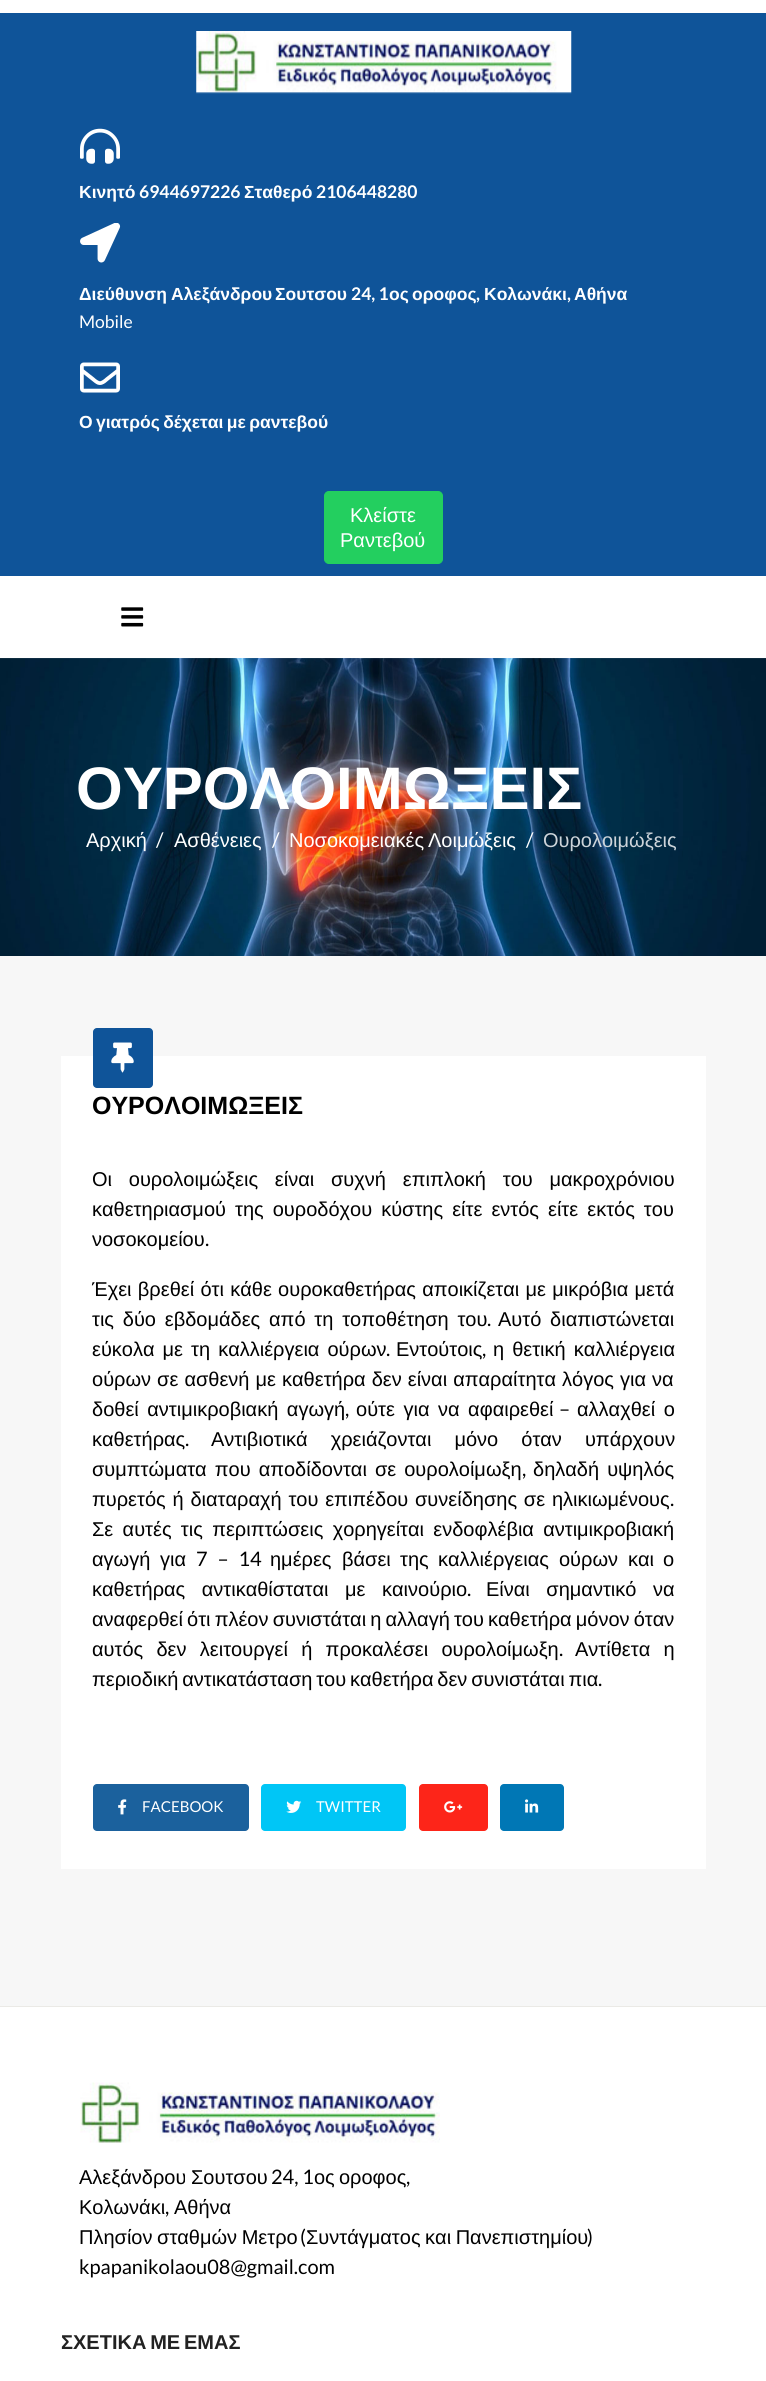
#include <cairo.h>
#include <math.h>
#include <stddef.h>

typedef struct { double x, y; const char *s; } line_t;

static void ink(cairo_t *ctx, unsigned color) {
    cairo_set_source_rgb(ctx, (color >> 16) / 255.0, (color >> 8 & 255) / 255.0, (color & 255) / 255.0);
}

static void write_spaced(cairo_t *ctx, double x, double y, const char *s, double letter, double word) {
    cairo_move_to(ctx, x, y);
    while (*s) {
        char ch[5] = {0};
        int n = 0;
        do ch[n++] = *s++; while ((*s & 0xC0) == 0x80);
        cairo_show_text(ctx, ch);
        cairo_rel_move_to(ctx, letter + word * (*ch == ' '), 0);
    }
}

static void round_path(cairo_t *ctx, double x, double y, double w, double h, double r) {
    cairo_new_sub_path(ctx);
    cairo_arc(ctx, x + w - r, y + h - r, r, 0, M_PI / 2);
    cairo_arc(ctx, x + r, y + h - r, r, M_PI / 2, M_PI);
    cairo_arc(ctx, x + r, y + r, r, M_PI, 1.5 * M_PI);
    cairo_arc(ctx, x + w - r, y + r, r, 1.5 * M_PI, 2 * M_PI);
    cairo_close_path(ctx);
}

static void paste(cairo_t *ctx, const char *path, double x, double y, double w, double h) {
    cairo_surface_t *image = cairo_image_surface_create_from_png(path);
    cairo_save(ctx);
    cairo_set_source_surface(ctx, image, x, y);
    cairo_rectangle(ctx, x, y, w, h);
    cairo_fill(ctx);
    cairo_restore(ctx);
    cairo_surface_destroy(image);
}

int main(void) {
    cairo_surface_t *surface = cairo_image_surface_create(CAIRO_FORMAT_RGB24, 766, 2381);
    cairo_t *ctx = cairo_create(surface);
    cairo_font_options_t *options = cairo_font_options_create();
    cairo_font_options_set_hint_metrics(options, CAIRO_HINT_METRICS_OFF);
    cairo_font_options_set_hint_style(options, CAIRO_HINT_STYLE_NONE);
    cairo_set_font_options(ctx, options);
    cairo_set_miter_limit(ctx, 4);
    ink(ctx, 0xF7F7F7);
    cairo_paint(ctx);
    ink(ctx, 0xFFFFFF);
    cairo_rectangle(ctx, 0, 0, 766, 13);
    cairo_fill(ctx);
    ink(ctx, 0x0F5499);
    cairo_rectangle(ctx, 0, 13, 766, 563);
    cairo_fill(ctx);
    paste(ctx, "media/1.png", 196, 31, 376, 63);
    paste(ctx, "media/2.png", 80, 128, 40, 36);
    cairo_select_font_face(ctx, "Liberation Sans", CAIRO_FONT_SLANT_NORMAL, CAIRO_FONT_WEIGHT_BOLD);
    cairo_set_font_size(ctx, 17.5);
    ink(ctx, 0xFFFFFF);
    cairo_move_to(ctx, 79, 198);
    cairo_show_text(ctx, "Κινητό");
    cairo_select_font_face(ctx, "Lato", CAIRO_FONT_SLANT_NORMAL, CAIRO_FONT_WEIGHT_BOLD);
    cairo_move_to(ctx, 139, 198);
    cairo_show_text(ctx, "6944697226");
    cairo_select_font_face(ctx, "Liberation Sans", CAIRO_FONT_SLANT_NORMAL, CAIRO_FONT_WEIGHT_BOLD);
    cairo_move_to(ctx, 244, 198);
    cairo_show_text(ctx, "Σταθερό");
    cairo_select_font_face(ctx, "Lato", CAIRO_FONT_SLANT_NORMAL, CAIRO_FONT_WEIGHT_BOLD);
    cairo_move_to(ctx, 316, 198);
    cairo_show_text(ctx, "2106448280");
    paste(ctx, "media/3.png", 80, 223, 41, 40);
    cairo_select_font_face(ctx, "Liberation Sans", CAIRO_FONT_SLANT_NORMAL, CAIRO_FONT_WEIGHT_BOLD);
    {
        static const line_t items[] = {
            {79, 300, "Διεύθυνση"},
            {171, 300, "Αλεξάνδρου"},
            {275, 300, "Σουτσου"},
        };
        for (size_t i = 0; i < sizeof items / sizeof *items; i++) {
            cairo_move_to(ctx, items[i].x, items[i].y);
            cairo_show_text(ctx, items[i].s);
        }
    }
    cairo_select_font_face(ctx, "Lato", CAIRO_FONT_SLANT_NORMAL, CAIRO_FONT_WEIGHT_BOLD);
    cairo_move_to(ctx, 351, 300);
    cairo_show_text(ctx, "24, 1");
    cairo_select_font_face(ctx, "Liberation Sans", CAIRO_FONT_SLANT_NORMAL, CAIRO_FONT_WEIGHT_BOLD);
    cairo_move_to(ctx, 389, 300);
    cairo_show_text(ctx, "ος");
    cairo_move_to(ctx, 412, 300);
    cairo_show_text(ctx, "οροφος");
    cairo_select_font_face(ctx, "Lato", CAIRO_FONT_SLANT_NORMAL, CAIRO_FONT_WEIGHT_BOLD);
    cairo_move_to(ctx, 476, 300);
    cairo_show_text(ctx, ",");
    cairo_select_font_face(ctx, "Liberation Sans", CAIRO_FONT_SLANT_NORMAL, CAIRO_FONT_WEIGHT_BOLD);
    cairo_move_to(ctx, 484, 300);
    cairo_show_text(ctx, "Κολωνάκι");
    cairo_select_font_face(ctx, "Lato", CAIRO_FONT_SLANT_NORMAL, CAIRO_FONT_WEIGHT_BOLD);
    cairo_move_to(ctx, 567, 300);
    cairo_show_text(ctx, ",");
    cairo_select_font_face(ctx, "Liberation Sans", CAIRO_FONT_SLANT_NORMAL, CAIRO_FONT_WEIGHT_BOLD);
    cairo_move_to(ctx, 574, 300);
    cairo_show_text(ctx, "Αθήνα");
    cairo_select_font_face(ctx, "Lato", CAIRO_FONT_SLANT_NORMAL, CAIRO_FONT_WEIGHT_NORMAL);
    cairo_move_to(ctx, 79, 328);
    cairo_show_text(ctx, "Mobile");
    paste(ctx, "media/4.png", 80, 362, 40, 31);
    cairo_select_font_face(ctx, "Liberation Sans", CAIRO_FONT_SLANT_NORMAL, CAIRO_FONT_WEIGHT_BOLD);
    write_spaced(ctx, 79, 428, "Ο γιατρός δέχεται με ραντεβού", 0, -1.5);
    ink(ctx, 0x23CF5F);
    round_path(ctx, 324.5, 491.5, 118, 72, 4.5);
    cairo_fill_preserve(ctx);
    cairo_set_line_width(ctx, 1);
    cairo_stroke(ctx);
    cairo_select_font_face(ctx, "Liberation Sans", CAIRO_FONT_SLANT_NORMAL, CAIRO_FONT_WEIGHT_NORMAL);
    cairo_set_font_size(ctx, 20);
    ink(ctx, 0xFFFFFF);
    cairo_move_to(ctx, 350, 522);
    cairo_show_text(ctx, "Κλείστε");
    cairo_move_to(ctx, 340, 547);
    cairo_show_text(ctx, "Ραντεβού");
    cairo_rectangle(ctx, 0, 576, 766, 82);
    cairo_fill(ctx);
    paste(ctx, "media/5.png", 121, 607, 23, 20);
    paste(ctx, "media/6.png", 0, 658, 766, 298);
    cairo_select_font_face(ctx, "Liberation Sans", CAIRO_FONT_SLANT_NORMAL, CAIRO_FONT_WEIGHT_BOLD);
    cairo_set_font_size(ctx, 60);
    cairo_move_to(ctx, 76, 809);
    cairo_show_text(ctx, "ΟΥΡΟΛΟΙΜΩΞΕΙΣ");
    cairo_select_font_face(ctx, "Liberation Sans", CAIRO_FONT_SLANT_NORMAL, CAIRO_FONT_WEIGHT_NORMAL);
    cairo_set_font_size(ctx, 20);
    cairo_move_to(ctx, 86, 847);
    cairo_show_text(ctx, "Αρχική");
    cairo_select_font_face(ctx, "Lato", CAIRO_FONT_SLANT_NORMAL, CAIRO_FONT_WEIGHT_NORMAL);
    cairo_move_to(ctx, 156, 847);
    cairo_show_text(ctx, "/");
    cairo_select_font_face(ctx, "Liberation Sans", CAIRO_FONT_SLANT_NORMAL, CAIRO_FONT_WEIGHT_NORMAL);
    cairo_move_to(ctx, 174, 847);
    cairo_show_text(ctx, "Ασθένειες");
    cairo_select_font_face(ctx, "Lato", CAIRO_FONT_SLANT_NORMAL, CAIRO_FONT_WEIGHT_NORMAL);
    cairo_move_to(ctx, 272, 847);
    cairo_show_text(ctx, "/");
    cairo_select_font_face(ctx, "Liberation Sans", CAIRO_FONT_SLANT_NORMAL, CAIRO_FONT_WEIGHT_NORMAL);
    write_spaced(ctx, 289, 847, "Νοσοκομειακές Λοιμώξεις", 0, -1.75);
    cairo_select_font_face(ctx, "Lato", CAIRO_FONT_SLANT_NORMAL, CAIRO_FONT_WEIGHT_NORMAL);
    cairo_move_to(ctx, 526, 847);
    cairo_show_text(ctx, "/");
    cairo_select_font_face(ctx, "Liberation Sans", CAIRO_FONT_SLANT_NORMAL, CAIRO_FONT_WEIGHT_NORMAL);
    ink(ctx, 0xCDD4DA);
    cairo_move_to(ctx, 543, 847);
    cairo_show_text(ctx, "Ουρολοιμώξεις");
    ink(ctx, 0xFFFFFF);
    cairo_rectangle(ctx, 61, 1056, 645, 813);
    cairo_fill(ctx);
    ink(ctx, 0x0F5499);
    round_path(ctx, 93, 1028, 60, 60, 4);
    cairo_fill(ctx);
    paste(ctx, "media/7.png", 111, 1042, 23, 31);
    cairo_select_font_face(ctx, "Liberation Sans", CAIRO_FONT_SLANT_NORMAL, CAIRO_FONT_WEIGHT_BOLD);
    cairo_set_font_size(ctx, 25);
    ink(ctx, 0x000000);
    cairo_move_to(ctx, 92, 1114);
    cairo_show_text(ctx, "ΟΥΡΟΛΟΙΜΩΞΕΙΣ");
    cairo_select_font_face(ctx, "Liberation Sans", CAIRO_FONT_SLANT_NORMAL, CAIRO_FONT_WEIGHT_NORMAL);
    cairo_set_font_size(ctx, 20);
    write_spaced(ctx, 92, 1186, "Οι ουρολοιμώξεις είναι συχνή επιπλοκή του μακροχρόνιου", 0, 11.25);
    write_spaced(ctx, 92, 1216, "καθετηριασμού της ουροδόχου κύστης είτε εντός είτε εκτός του", 0, 3.5);
    cairo_move_to(ctx, 92, 1246);
    cairo_show_text(ctx, "νοσοκομείου");
    cairo_select_font_face(ctx, "Lato", CAIRO_FONT_SLANT_NORMAL, CAIRO_FONT_WEIGHT_NORMAL);
    cairo_move_to(ctx, 205, 1246);
    cairo_show_text(ctx, ".");
    cairo_select_font_face(ctx, "Liberation Sans", CAIRO_FONT_SLANT_NORMAL, CAIRO_FONT_WEIGHT_NORMAL);
    write_spaced(ctx, 92, 1296, "Έχει βρεθεί ότι κάθε ουροκαθετήρας αποικίζεται με μικρόβια μετά", 0, 0.75);
    write_spaced(ctx, 92, 1326, "τις δύο εβδομάδες από τη τοποθέτηση του", 0, 3.25);
    cairo_select_font_face(ctx, "Lato", CAIRO_FONT_SLANT_NORMAL, CAIRO_FONT_WEIGHT_NORMAL);
    cairo_move_to(ctx, 487, 1326);
    cairo_show_text(ctx, ".");
    cairo_select_font_face(ctx, "Liberation Sans", CAIRO_FONT_SLANT_NORMAL, CAIRO_FONT_WEIGHT_NORMAL);
    write_spaced(ctx, 498, 1326, "Αυτό διαπιστώνεται", 0, 3.25);
    write_spaced(ctx, 92, 1356, "εύκολα με τη καλλιέργεια ούρων", 0, 2.5);
    cairo_select_font_face(ctx, "Lato", CAIRO_FONT_SLANT_NORMAL, CAIRO_FONT_WEIGHT_NORMAL);
    cairo_move_to(ctx, 386, 1356);
    cairo_show_text(ctx, ".");
    cairo_select_font_face(ctx, "Liberation Sans", CAIRO_FONT_SLANT_NORMAL, CAIRO_FONT_WEIGHT_NORMAL);
    cairo_move_to(ctx, 396, 1356);
    cairo_show_text(ctx, "Εντούτοις");
    cairo_select_font_face(ctx, "Lato", CAIRO_FONT_SLANT_NORMAL, CAIRO_FONT_WEIGHT_NORMAL);
    cairo_move_to(ctx, 482, 1356);
    cairo_show_text(ctx, ",");
    cairo_select_font_face(ctx, "Liberation Sans", CAIRO_FONT_SLANT_NORMAL, CAIRO_FONT_WEIGHT_NORMAL);
    write_spaced(ctx, 493, 1356, "η θετική καλλιέργεια", 0, 2.5);
    write_spaced(ctx, 92, 1386, "ούρων σε ασθενή με καθετήρα δεν είναι απαραίτητα λόγος για να", 0, 0.5);
    write_spaced(ctx, 92, 1416, "δοθεί αντιμικροβιακή αγωγή", 0, 3);
    write_spaced(ctx, 356, 1416, "ούτε για να αφαιρεθεί", 0, 3);
    cairo_select_font_face(ctx, "Lato", CAIRO_FONT_SLANT_NORMAL, CAIRO_FONT_WEIGHT_NORMAL);
    cairo_move_to(ctx, 559, 1416);
    cairo_show_text(ctx, "–");
    cairo_select_font_face(ctx, "Liberation Sans", CAIRO_FONT_SLANT_NORMAL, CAIRO_FONT_WEIGHT_NORMAL);
    write_spaced(ctx, 577, 1416, "αλλαχθεί ο", 0, 3);
    cairo_select_font_face(ctx, "Lato", CAIRO_FONT_SLANT_NORMAL, CAIRO_FONT_WEIGHT_NORMAL);
    cairo_move_to(ctx, 345, 1416);
    cairo_show_text(ctx, ",");
    cairo_select_font_face(ctx, "Liberation Sans", CAIRO_FONT_SLANT_NORMAL, CAIRO_FONT_WEIGHT_NORMAL);
    cairo_move_to(ctx, 92, 1446);
    cairo_show_text(ctx, "καθετήρας");
    cairo_select_font_face(ctx, "Lato", CAIRO_FONT_SLANT_NORMAL, CAIRO_FONT_WEIGHT_NORMAL);
    cairo_move_to(ctx, 185, 1446);
    cairo_show_text(ctx, ".");
    cairo_select_font_face(ctx, "Liberation Sans", CAIRO_FONT_SLANT_NORMAL, CAIRO_FONT_WEIGHT_NORMAL);
    write_spaced(ctx, 211, 1446, "Αντιβιοτικά χρειάζονται μόνο όταν υπάρχουν", 0, 17.5);
    write_spaced(ctx, 92, 1476, "συμπτώματα που αποδίδονται σε ουρολοίμωξη", 0, 2.5);
    cairo_select_font_face(ctx, "Lato", CAIRO_FONT_SLANT_NORMAL, CAIRO_FONT_WEIGHT_NORMAL);
    cairo_move_to(ctx, 522, 1476);
    cairo_show_text(ctx, ",");
    cairo_select_font_face(ctx, "Liberation Sans", CAIRO_FONT_SLANT_NORMAL, CAIRO_FONT_WEIGHT_NORMAL);
    write_spaced(ctx, 533, 1476, "δηλαδή υψηλός", 0, 2.5);
    write_spaced(ctx, 92, 1506, "πυρετός ή διαταραχή του επιπέδου συνείδησης σε ηλικιωμένους", 0, 1.25);
    cairo_select_font_face(ctx, "Lato", CAIRO_FONT_SLANT_NORMAL, CAIRO_FONT_WEIGHT_NORMAL);
    cairo_move_to(ctx, 670, 1506);
    cairo_show_text(ctx, ".");
    cairo_select_font_face(ctx, "Liberation Sans", CAIRO_FONT_SLANT_NORMAL, CAIRO_FONT_WEIGHT_NORMAL);
    write_spaced(ctx, 92, 1536, "Σε αυτές τις περιπτώσεις χορηγείται ενδοφλέβια αντιμικροβιακή", 0, 3.75);
    cairo_move_to(ctx, 92, 1566);
    cairo_show_text(ctx, "αγωγή");
    cairo_move_to(ctx, 160, 1566);
    cairo_show_text(ctx, "για");
    cairo_select_font_face(ctx, "Lato", CAIRO_FONT_SLANT_NORMAL, CAIRO_FONT_WEIGHT_NORMAL);
    write_spaced(ctx, 196, 1566, "7 – 14", 0, 6);
    cairo_select_font_face(ctx, "Liberation Sans", CAIRO_FONT_SLANT_NORMAL, CAIRO_FONT_WEIGHT_NORMAL);
    {
        static const line_t items[] = {
            {270, 1566, "ημέρες"},
            {342, 1566, "βάσει"},
            {400, 1566, "της"},
            {438, 1566, "καλλιέργειας"},
            {559, 1566, "ούρων"},
            {628, 1566, "και"},
            {663, 1566, "ο"},
        };
        for (size_t i = 0; i < sizeof items / sizeof *items; i++) {
            cairo_move_to(ctx, items[i].x, items[i].y);
            cairo_show_text(ctx, items[i].s);
        }
    }
    write_spaced(ctx, 92, 1596, "καθετήρας αντικαθίσταται με καινούριο", 0, 11);
    cairo_select_font_face(ctx, "Lato", CAIRO_FONT_SLANT_NORMAL, CAIRO_FONT_WEIGHT_NORMAL);
    cairo_move_to(ctx, 467, 1596);
    cairo_show_text(ctx, ".");
    cairo_select_font_face(ctx, "Liberation Sans", CAIRO_FONT_SLANT_NORMAL, CAIRO_FONT_WEIGHT_NORMAL);
    write_spaced(ctx, 486, 1596, "Είναι σημαντικό να", 0, 11);
    write_spaced(ctx, 92, 1626, "αναφερθεί ότι πλέον συνιστάται η αλλαγή του καθετήρα μόνον όταν", 0, -1.4);
    write_spaced(ctx, 92, 1656, "αυτός δεν λειτουργεί ή προκαλέσει ουρολοίμωξη", 0, 7.75);
    cairo_select_font_face(ctx, "Lato", CAIRO_FONT_SLANT_NORMAL, CAIRO_FONT_WEIGHT_NORMAL);
    cairo_move_to(ctx, 559, 1656);
    cairo_show_text(ctx, ".");
    cairo_select_font_face(ctx, "Liberation Sans", CAIRO_FONT_SLANT_NORMAL, CAIRO_FONT_WEIGHT_NORMAL);
    write_spaced(ctx, 575, 1656, "Αντίθετα η", 0, 7.75);
    write_spaced(ctx, 92, 1686, "περιοδική αντικατάσταση του καθετήρα δεν συνιστάται πια", 0, -1.75);
    cairo_select_font_face(ctx, "Lato", CAIRO_FONT_SLANT_NORMAL, CAIRO_FONT_WEIGHT_NORMAL);
    cairo_move_to(ctx, 598, 1686);
    cairo_show_text(ctx, ".");
    ink(ctx, 0x1B619D);
    round_path(ctx, 93, 1784, 156, 47, 4);
    cairo_fill(ctx);
    paste(ctx, "media/8.png", 118, 1799, 9, 16);
    cairo_set_font_size(ctx, 15);
    ink(ctx, 0xFFFFFF);
    cairo_move_to(ctx, 142, 1812);
    cairo_show_text(ctx, "FACEBOOK");
    ink(ctx, 0x00C6F6);
    round_path(ctx, 261, 1784, 145, 47, 4);
    cairo_fill(ctx);
    paste(ctx, "media/9.png", 286, 1800, 16, 13);
    ink(ctx, 0xFFFFFF);
    cairo_move_to(ctx, 316, 1812);
    cairo_show_text(ctx, "TWITTER");
    ink(ctx, 0xFD2519);
    round_path(ctx, 419, 1784, 69, 47, 4);
    cairo_fill(ctx);
    paste(ctx, "media/10.png", 444, 1801, 19, 12);
    ink(ctx, 0x0077B5);
    round_path(ctx, 500, 1784, 64, 47, 4);
    cairo_fill(ctx);
    paste(ctx, "media/11.png", 525, 1799, 14, 14);
    ink(ctx, 0xFFFFFF);
    cairo_rectangle(ctx, 0, 2007, 766, 374);
    cairo_fill(ctx);
    ink(ctx, 0xEBEAE6);
    cairo_rectangle(ctx, 0, 2006, 766, 1);
    cairo_fill(ctx);
    paste(ctx, "media/12.png", 80, 2082, 360, 61);
    cairo_select_font_face(ctx, "Liberation Sans", CAIRO_FONT_SLANT_NORMAL, CAIRO_FONT_WEIGHT_NORMAL);
    cairo_set_font_size(ctx, 20);
    ink(ctx, 0x000000);
    cairo_move_to(ctx, 79, 2184);
    cairo_show_text(ctx, "Αλεξάνδρου");
    cairo_move_to(ctx, 191, 2184);
    cairo_show_text(ctx, "Σουτσου");
    cairo_select_font_face(ctx, "Lato", CAIRO_FONT_SLANT_NORMAL, CAIRO_FONT_WEIGHT_NORMAL);
    cairo_move_to(ctx, 271, 2184);
    cairo_show_text(ctx, "24, 1");
    cairo_select_font_face(ctx, "Liberation Sans", CAIRO_FONT_SLANT_NORMAL, CAIRO_FONT_WEIGHT_NORMAL);
    cairo_move_to(ctx, 314, 2184);
    cairo_show_text(ctx, "ος");
    cairo_move_to(ctx, 339, 2184);
    cairo_show_text(ctx, "οροφος");
    cairo_select_font_face(ctx, "Lato", CAIRO_FONT_SLANT_NORMAL, CAIRO_FONT_WEIGHT_NORMAL);
    cairo_move_to(ctx, 406, 2184);
    cairo_show_text(ctx, ",");
    cairo_select_font_face(ctx, "Liberation Sans", CAIRO_FONT_SLANT_NORMAL, CAIRO_FONT_WEIGHT_NORMAL);
    cairo_move_to(ctx, 79, 2214);
    cairo_show_text(ctx, "Κολωνάκι");
    cairo_select_font_face(ctx, "Lato", CAIRO_FONT_SLANT_NORMAL, CAIRO_FONT_WEIGHT_NORMAL);
    cairo_move_to(ctx, 165, 2214);
    cairo_show_text(ctx, ",");
    cairo_select_font_face(ctx, "Liberation Sans", CAIRO_FONT_SLANT_NORMAL, CAIRO_FONT_WEIGHT_NORMAL);
    cairo_move_to(ctx, 174, 2214);
    cairo_show_text(ctx, "Αθήνα");
    write_spaced(ctx, 79, 2244, "Πλησίον σταθμών Μετρο", 0, -1);
    cairo_select_font_face(ctx, "Lato", CAIRO_FONT_SLANT_NORMAL, CAIRO_FONT_WEIGHT_NORMAL);
    cairo_move_to(ctx, 300, 2244);
    cairo_show_text(ctx, "(");
    cairo_select_font_face(ctx, "Liberation Sans", CAIRO_FONT_SLANT_NORMAL, CAIRO_FONT_WEIGHT_NORMAL);
    write_spaced(ctx, 306, 2244, "Συντάγματος και Πανεπιστημίου", 0, -1);
    cairo_select_font_face(ctx, "Lato", CAIRO_FONT_SLANT_NORMAL, CAIRO_FONT_WEIGHT_NORMAL);
    cairo_move_to(ctx, 587, 2244);
    cairo_show_text(ctx, ")");
    cairo_move_to(ctx, 79, 2274);
    cairo_show_text(ctx, "kpapanikolaou08@gmail.com");
    cairo_select_font_face(ctx, "Liberation Sans", CAIRO_FONT_SLANT_NORMAL, CAIRO_FONT_WEIGHT_BOLD);
    ink(ctx, 0x222222);
    write_spaced(ctx, 61, 2349, "ΣΧΕΤΙΚΑ ΜΕ ΕΜΑΣ", 0, -1.75);
    cairo_surface_write_to_png(surface, "image.png");
    cairo_font_options_destroy(options);
    cairo_destroy(ctx);
    cairo_surface_destroy(surface);
    return 0;
}
